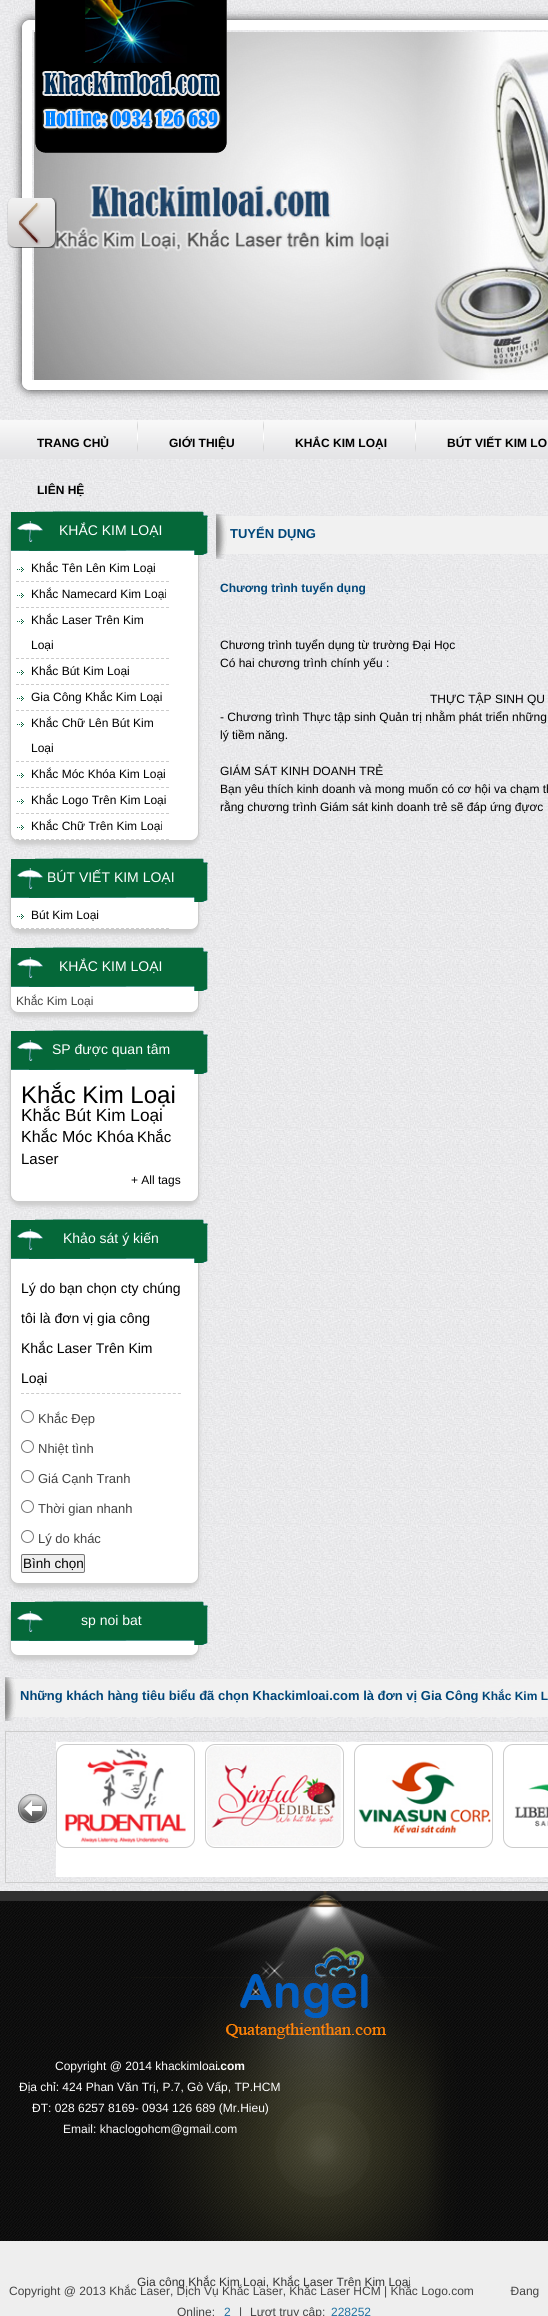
#include <cairo.h>
#include <math.h>
#include <stddef.h>

typedef struct { double x, y; const char *s; } line_t;

static void ink(cairo_t *ctx, unsigned color) {
    cairo_set_source_rgb(ctx, (color >> 16) / 255.0, (color >> 8 & 255) / 255.0, (color & 255) / 255.0);
}

static void round_path(cairo_t *ctx, double x, double y, double w, double h, double r) {
    cairo_new_sub_path(ctx);
    cairo_arc(ctx, x + w - r, y + h - r, r, 0, M_PI / 2);
    cairo_arc(ctx, x + r, y + h - r, r, M_PI / 2, M_PI);
    cairo_arc(ctx, x + r, y + r, r, M_PI, 1.5 * M_PI);
    cairo_arc(ctx, x + w - r, y + r, r, 1.5 * M_PI, 2 * M_PI);
    cairo_close_path(ctx);
}

static void blur_box(cairo_t *ctx, double x, double y, double w, double h, double r, double blur, double alpha) {
    cairo_push_group_with_content(ctx, CAIRO_CONTENT_ALPHA);
    cairo_set_operator(ctx, CAIRO_OPERATOR_SOURCE);
    for (int i = 15; i >= -15 && fmin(w, h) + blur * i / 3 > 0; i -= 2) {
        double e = blur * i / 6;
        cairo_set_source_rgba(ctx, 0, 0, 0, alpha * erfc((i - 1) / 8.5) / 2);
        round_path(ctx, x - e, y - e, w + 2 * e, h + 2 * e, fmax(0, fmin(r + e + blur * .6, fmin(w, h) / 2 + e)));
        cairo_fill(ctx);
    }
    cairo_pattern_t *soft = cairo_pop_group(ctx);
    cairo_mask(ctx, soft);
    cairo_pattern_destroy(soft);
}

static void paste(cairo_t *ctx, const char *path, double x, double y, double w, double h) {
    cairo_surface_t *image = cairo_image_surface_create_from_png(path);
    cairo_save(ctx);
    cairo_set_source_surface(ctx, image, x, y);
    cairo_rectangle(ctx, x, y, w, h);
    cairo_fill(ctx);
    cairo_restore(ctx);
    cairo_surface_destroy(image);
}

int main(void) {
    cairo_surface_t *surface = cairo_image_surface_create(CAIRO_FORMAT_RGB24, 548, 2316);
    cairo_t *ctx = cairo_create(surface);
    cairo_font_options_t *options = cairo_font_options_create();
    cairo_font_options_set_hint_metrics(options, CAIRO_HINT_METRICS_OFF);
    cairo_font_options_set_hint_style(options, CAIRO_HINT_STYLE_NONE);
    cairo_set_font_options(ctx, options);
    cairo_set_miter_limit(ctx, 4);
    ink(ctx, 0xFFFFFF);
    cairo_paint(ctx);
    paste(ctx, "media/1.png", 0, 0, 548, 1891);
    cairo_save(ctx);
    cairo_set_fill_rule(ctx, CAIRO_FILL_RULE_EVEN_ODD);
    cairo_new_path(ctx);
    cairo_move_to(ctx, 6, 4);
    cairo_line_to(ctx, 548, 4);
    cairo_line_to(ctx, 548, 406);
    cairo_line_to(ctx, 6, 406);
    cairo_close_path(ctx);
    cairo_move_to(ctx, 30, 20);
    cairo_line_to(ctx, 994, 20);
    cairo_curve_to(ctx, 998.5, 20, 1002, 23.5, 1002, 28);
    cairo_line_to(ctx, 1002, 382);
    cairo_curve_to(ctx, 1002, 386.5, 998.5, 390, 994, 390);
    cairo_line_to(ctx, 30, 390);
    cairo_curve_to(ctx, 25.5, 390, 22, 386.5, 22, 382);
    cairo_line_to(ctx, 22, 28);
    cairo_curve_to(ctx, 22, 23.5, 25.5, 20, 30, 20);
    cairo_close_path(ctx);
    cairo_clip(ctx);
    ink(ctx, 0x333333);
    blur_box(ctx, 22, 20, 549, 370, 8, 5, 1);
    cairo_restore(ctx);
    round_path(ctx, 27, 25, 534, 360, 3);
    ink(ctx, 0xFFFFFF);
    cairo_set_line_width(ctx, 10);
    cairo_stroke(ctx);
    paste(ctx, "media/4.png", 34, 32, 514, 348);
    paste(ctx, "media/2.png", 35, 0, 192, 153);
    paste(ctx, "media/3.png", 7, 198, 50, 50);
    paste(ctx, "media/5.png", 0, 420, 548, 39);
    cairo_select_font_face(ctx, "Liberation Sans", CAIRO_FONT_SLANT_NORMAL, CAIRO_FONT_WEIGHT_BOLD);
    cairo_set_font_size(ctx, 12);
    ink(ctx, 0x000000);
    cairo_move_to(ctx, 37, 447);
    cairo_show_text(ctx, "TRANG CHỦ");
    paste(ctx, "media/6.png", 137, 421, 1, 31);
    cairo_move_to(ctx, 169, 447);
    cairo_show_text(ctx, "GIỚI THIỆU");
    paste(ctx, "media/6.png", 263, 421, 1, 31);
    cairo_move_to(ctx, 295, 447);
    cairo_show_text(ctx, "KHẮC KIM LOẠI");
    paste(ctx, "media/6.png", 415, 421, 1, 31);
    cairo_move_to(ctx, 447, 447);
    cairo_show_text(ctx, "BÚT VIẾT KIM LO");
    cairo_move_to(ctx, 37, 494);
    cairo_show_text(ctx, "LIÊN HỆ");
    ink(ctx, 0xCCCCCC);
    blur_box(ctx, 10, 518, 189, 327, 10, 2, 1);
    ink(ctx, 0xFFFFFF);
    cairo_new_path(ctx);
    cairo_move_to(ctx, 20, 514.5);
    cairo_line_to(ctx, 198.5, 514.5);
    cairo_line_to(ctx, 198.5, 833);
    cairo_curve_to(ctx, 198.5, 837, 195, 840.5, 191, 840.5);
    cairo_line_to(ctx, 18, 840.5);
    cairo_curve_to(ctx, 14, 840.5, 10.5, 837, 10.5, 833);
    cairo_line_to(ctx, 10.5, 524);
    cairo_curve_to(ctx, 10.5, 519, 15, 514.5, 20, 514.5);
    cairo_close_path(ctx);
    cairo_fill_preserve(ctx);
    ink(ctx, 0xCCCCCC);
    cairo_set_line_width(ctx, 1);
    cairo_stroke(ctx);
    paste(ctx, "media/7.png", 11, 511, 197, 44);
    cairo_select_font_face(ctx, "Liberation Sans", CAIRO_FONT_SLANT_NORMAL, CAIRO_FONT_WEIGHT_NORMAL);
    cairo_set_font_size(ctx, 14);
    ink(ctx, 0xFFFFFF);
    cairo_move_to(ctx, 59, 535);
    cairo_show_text(ctx, "KHẮC KIM LOẠI");
    paste(ctx, "media/8.png", 17, 567, 7, 5);
    cairo_new_path(ctx);
    cairo_move_to(ctx, 16, 581.5);
    cairo_line_to(ctx, 169, 581.5);
    ink(ctx, 0xCCCCCC);
    cairo_set_dash(ctx, (double[]){3, 2}, 2, 0);
    cairo_stroke(ctx);
    cairo_set_font_size(ctx, 12);
    ink(ctx, 0x000000);
    cairo_move_to(ctx, 31, 572);
    cairo_show_text(ctx, "Khắc Tên Lên Kim Loại");
    paste(ctx, "media/8.png", 17, 593, 7, 5);
    cairo_new_path(ctx);
    cairo_move_to(ctx, 16, 607.5);
    cairo_line_to(ctx, 169, 607.5);
    ink(ctx, 0xCCCCCC);
    cairo_stroke(ctx);
    ink(ctx, 0x000000);
    cairo_move_to(ctx, 31, 598);
    cairo_show_text(ctx, "Khắc Namecard Kim Loại");
    paste(ctx, "media/8.png", 17, 619, 7, 5);
    cairo_new_path(ctx);
    cairo_move_to(ctx, 16, 658.5);
    cairo_line_to(ctx, 169, 658.5);
    ink(ctx, 0xCCCCCC);
    cairo_stroke(ctx);
    ink(ctx, 0x000000);
    cairo_move_to(ctx, 31, 624);
    cairo_show_text(ctx, "Khắc Laser Trên Kim");
    cairo_move_to(ctx, 31, 649);
    cairo_show_text(ctx, "Loại");
    paste(ctx, "media/8.png", 17, 670, 7, 5);
    cairo_new_path(ctx);
    cairo_move_to(ctx, 16, 684.5);
    cairo_line_to(ctx, 169, 684.5);
    ink(ctx, 0xCCCCCC);
    cairo_stroke(ctx);
    ink(ctx, 0x000000);
    cairo_move_to(ctx, 31, 675);
    cairo_show_text(ctx, "Khắc Bút Kim Loại");
    paste(ctx, "media/8.png", 17, 696, 7, 5);
    cairo_new_path(ctx);
    cairo_move_to(ctx, 16, 710.5);
    cairo_line_to(ctx, 169, 710.5);
    ink(ctx, 0xCCCCCC);
    cairo_stroke(ctx);
    ink(ctx, 0x000000);
    cairo_move_to(ctx, 31, 701);
    cairo_show_text(ctx, "Gia Công Khắc Kim Loại");
    paste(ctx, "media/8.png", 17, 722, 7, 5);
    cairo_new_path(ctx);
    cairo_move_to(ctx, 16, 761.5);
    cairo_line_to(ctx, 169, 761.5);
    ink(ctx, 0xCCCCCC);
    cairo_stroke(ctx);
    ink(ctx, 0x000000);
    cairo_move_to(ctx, 31, 727);
    cairo_show_text(ctx, "Khắc Chữ Lên Bút Kim");
    cairo_move_to(ctx, 31, 752);
    cairo_show_text(ctx, "Loại");
    paste(ctx, "media/8.png", 17, 773, 7, 5);
    cairo_new_path(ctx);
    cairo_move_to(ctx, 16, 787.5);
    cairo_line_to(ctx, 169, 787.5);
    ink(ctx, 0xCCCCCC);
    cairo_stroke(ctx);
    ink(ctx, 0x000000);
    cairo_move_to(ctx, 31, 778);
    cairo_show_text(ctx, "Khắc Móc Khóa Kim Loại");
    paste(ctx, "media/8.png", 17, 799, 7, 5);
    cairo_new_path(ctx);
    cairo_move_to(ctx, 16, 813.5);
    cairo_line_to(ctx, 169, 813.5);
    ink(ctx, 0xCCCCCC);
    cairo_stroke(ctx);
    ink(ctx, 0x000000);
    cairo_move_to(ctx, 31, 804);
    cairo_show_text(ctx, "Khắc Logo Trên Kim Loại");
    paste(ctx, "media/8.png", 17, 825, 7, 5);
    cairo_new_path(ctx);
    cairo_move_to(ctx, 16, 839.5);
    cairo_line_to(ctx, 169, 839.5);
    ink(ctx, 0xCCCCCC);
    cairo_stroke(ctx);
    ink(ctx, 0x000000);
    cairo_move_to(ctx, 31, 830);
    cairo_show_text(ctx, "Khắc Chữ Trên Kim Loại");
    ink(ctx, 0xCCCCCC);
    blur_box(ctx, 10, 865, 189, 69, 10, 2, 1);
    ink(ctx, 0xFFFFFF);
    cairo_new_path(ctx);
    cairo_move_to(ctx, 20, 861.5);
    cairo_line_to(ctx, 198.5, 861.5);
    cairo_line_to(ctx, 198.5, 922);
    cairo_curve_to(ctx, 198.5, 926, 195, 929.5, 191, 929.5);
    cairo_line_to(ctx, 18, 929.5);
    cairo_curve_to(ctx, 14, 929.5, 10.5, 926, 10.5, 922);
    cairo_line_to(ctx, 10.5, 871);
    cairo_curve_to(ctx, 10.5, 866, 15, 861.5, 20, 861.5);
    cairo_close_path(ctx);
    cairo_fill_preserve(ctx);
    ink(ctx, 0xCCCCCC);
    cairo_set_dash(ctx, NULL, 0, 0);
    cairo_stroke(ctx);
    paste(ctx, "media/9.png", 11, 858, 197, 44);
    cairo_set_font_size(ctx, 14);
    ink(ctx, 0xFFFFFF);
    cairo_move_to(ctx, 47, 882);
    cairo_show_text(ctx, "BÚT VIẾT KIM LOẠI");
    paste(ctx, "media/8.png", 17, 914, 7, 5);
    cairo_new_path(ctx);
    cairo_move_to(ctx, 16, 928.5);
    cairo_line_to(ctx, 169, 928.5);
    ink(ctx, 0xCCCCCC);
    cairo_set_dash(ctx, (double[]){3, 2}, 2, 0);
    cairo_stroke(ctx);
    cairo_set_font_size(ctx, 12);
    ink(ctx, 0x000000);
    cairo_move_to(ctx, 31, 919);
    cairo_show_text(ctx, "Bút Kim Loại");
    ink(ctx, 0xCCCCCC);
    blur_box(ctx, 10, 954, 189, 63, 10, 2, 1);
    ink(ctx, 0xFFFFFF);
    cairo_new_path(ctx);
    cairo_move_to(ctx, 20, 950.5);
    cairo_line_to(ctx, 198.5, 950.5);
    cairo_line_to(ctx, 198.5, 1005);
    cairo_curve_to(ctx, 198.5, 1009, 195, 1012.5, 191, 1012.5);
    cairo_line_to(ctx, 18, 1012.5);
    cairo_curve_to(ctx, 14, 1012.5, 10.5, 1009, 10.5, 1005);
    cairo_line_to(ctx, 10.5, 960);
    cairo_curve_to(ctx, 10.5, 955, 15, 950.5, 20, 950.5);
    cairo_close_path(ctx);
    cairo_fill_preserve(ctx);
    ink(ctx, 0xCCCCCC);
    cairo_set_dash(ctx, NULL, 0, 0);
    cairo_stroke(ctx);
    paste(ctx, "media/10.png", 11, 947, 197, 44);
    cairo_set_font_size(ctx, 14);
    ink(ctx, 0xFFFFFF);
    cairo_move_to(ctx, 59, 971);
    cairo_show_text(ctx, "KHẮC KIM LOẠI");
    cairo_set_font_size(ctx, 12);
    ink(ctx, 0x434343);
    cairo_move_to(ctx, 16, 1005);
    cairo_show_text(ctx, "Khắc Kim Loại");
    ink(ctx, 0xCCCCCC);
    blur_box(ctx, 10, 1037, 189, 169, 10, 2, 1);
    ink(ctx, 0xFFFFFF);
    cairo_new_path(ctx);
    cairo_move_to(ctx, 20, 1033.5);
    cairo_line_to(ctx, 198.5, 1033.5);
    cairo_line_to(ctx, 198.5, 1194);
    cairo_curve_to(ctx, 198.5, 1198, 195, 1201.5, 191, 1201.5);
    cairo_line_to(ctx, 18, 1201.5);
    cairo_curve_to(ctx, 14, 1201.5, 10.5, 1198, 10.5, 1194);
    cairo_line_to(ctx, 10.5, 1043);
    cairo_curve_to(ctx, 10.5, 1038, 15, 1033.5, 20, 1033.5);
    cairo_close_path(ctx);
    cairo_fill_preserve(ctx);
    ink(ctx, 0xCCCCCC);
    cairo_stroke(ctx);
    paste(ctx, "media/11.png", 11, 1030, 197, 44);
    cairo_set_font_size(ctx, 14);
    ink(ctx, 0xFFFFFF);
    cairo_move_to(ctx, 52, 1054);
    cairo_show_text(ctx, "SP được quan tâm");
    cairo_set_font_size(ctx, 24);
    ink(ctx, 0x000000);
    cairo_move_to(ctx, 21, 1103);
    cairo_show_text(ctx, "Khắc Kim Loại");
    cairo_set_font_size(ctx, 17.25);
    cairo_move_to(ctx, 21, 1121);
    cairo_show_text(ctx, "Khắc Bút Kim Loại");
    cairo_set_font_size(ctx, 16);
    cairo_move_to(ctx, 21, 1142);
    cairo_show_text(ctx, "Khắc Móc Khóa");
    cairo_set_font_size(ctx, 15);
    cairo_move_to(ctx, 137, 1142);
    cairo_show_text(ctx, "Khắc");
    cairo_move_to(ctx, 21, 1164);
    cairo_show_text(ctx, "Laser");
    cairo_set_font_size(ctx, 12);
    cairo_move_to(ctx, 131, 1184);
    cairo_show_text(ctx, "+ All tags");
    ink(ctx, 0xCCCCCC);
    blur_box(ctx, 10, 1226, 189, 362, 10, 2, 1);
    ink(ctx, 0xFFFFFF);
    cairo_new_path(ctx);
    cairo_move_to(ctx, 20, 1222.5);
    cairo_line_to(ctx, 198.5, 1222.5);
    cairo_line_to(ctx, 198.5, 1576);
    cairo_curve_to(ctx, 198.5, 1580, 195, 1583.5, 191, 1583.5);
    cairo_line_to(ctx, 18, 1583.5);
    cairo_curve_to(ctx, 14, 1583.5, 10.5, 1580, 10.5, 1576);
    cairo_line_to(ctx, 10.5, 1232);
    cairo_curve_to(ctx, 10.5, 1227, 15, 1222.5, 20, 1222.5);
    cairo_close_path(ctx);
    cairo_fill_preserve(ctx);
    ink(ctx, 0xCCCCCC);
    cairo_stroke(ctx);
    paste(ctx, "media/12.png", 11, 1219, 197, 44);
    cairo_set_font_size(ctx, 14);
    ink(ctx, 0xFFFFFF);
    cairo_move_to(ctx, 63, 1243);
    cairo_show_text(ctx, "Khảo sát ý kiến");
    cairo_new_path(ctx);
    cairo_move_to(ctx, 21, 1393.5);
    cairo_line_to(ctx, 181, 1393.5);
    ink(ctx, 0xCCCCCC);
    cairo_set_dash(ctx, (double[]){3, 2.06}, 2, 0);
    cairo_stroke(ctx);
    ink(ctx, 0x000000);
    {
        static const line_t items[] = {
            {21, 1293, "Lý do bạn chọn cty chúng"},
            {21, 1323, "tôi là đơn vị gia công"},
            {21, 1353, "Khắc Laser Trên Kim"},
            {21, 1383, "Loại"},
        };
        for (size_t i = 0; i < sizeof items / sizeof *items; i++) {
            cairo_move_to(ctx, items[i].x, items[i].y);
            cairo_show_text(ctx, items[i].s);
        }
    }
    cairo_new_path(ctx);
    cairo_arc(ctx, 27.5, 1416.5, 6, 0, 2 * M_PI);
    ink(ctx, 0x767676);
    cairo_set_dash(ctx, NULL, 0, 0);
    cairo_stroke(ctx);
    cairo_set_font_size(ctx, 13);
    ink(ctx, 0x434343);
    cairo_move_to(ctx, 38, 1423);
    cairo_show_text(ctx, "Khắc Đẹp");
    cairo_new_path(ctx);
    cairo_arc(ctx, 27.5, 1446.5, 6, 0, 2 * M_PI);
    ink(ctx, 0x767676);
    cairo_stroke(ctx);
    ink(ctx, 0x434343);
    cairo_move_to(ctx, 38, 1453);
    cairo_show_text(ctx, "Nhiệt tình");
    cairo_new_path(ctx);
    cairo_arc(ctx, 27.5, 1476.5, 6, 0, 2 * M_PI);
    ink(ctx, 0x767676);
    cairo_stroke(ctx);
    ink(ctx, 0x434343);
    cairo_move_to(ctx, 38, 1483);
    cairo_show_text(ctx, "Giá Cạnh Tranh");
    cairo_new_path(ctx);
    cairo_arc(ctx, 27.5, 1506.5, 6, 0, 2 * M_PI);
    ink(ctx, 0x767676);
    cairo_stroke(ctx);
    ink(ctx, 0x434343);
    cairo_move_to(ctx, 38, 1513);
    cairo_show_text(ctx, "Thời gian nhanh");
    cairo_new_path(ctx);
    cairo_arc(ctx, 27.5, 1536.5, 6, 0, 2 * M_PI);
    ink(ctx, 0x767676);
    cairo_stroke(ctx);
    ink(ctx, 0x434343);
    cairo_move_to(ctx, 38, 1543);
    cairo_show_text(ctx, "Lý do khác");
    ink(ctx, 0xEFEFEF);
    round_path(ctx, 21.5, 1554.5, 63, 18, 1.5);
    cairo_fill_preserve(ctx);
    ink(ctx, 0x767676);
    cairo_stroke(ctx);
    cairo_set_font_size(ctx, 13.5);
    ink(ctx, 0x000000);
    cairo_move_to(ctx, 23, 1568);
    cairo_show_text(ctx, "Bình chọn");
    ink(ctx, 0xCCCCCC);
    blur_box(ctx, 10, 1608, 189, 52, 10, 2, 1);
    ink(ctx, 0xFFFFFF);
    cairo_new_path(ctx);
    cairo_move_to(ctx, 20, 1604.5);
    cairo_line_to(ctx, 198.5, 1604.5);
    cairo_line_to(ctx, 198.5, 1648);
    cairo_curve_to(ctx, 198.5, 1652, 195, 1655.5, 191, 1655.5);
    cairo_line_to(ctx, 18, 1655.5);
    cairo_curve_to(ctx, 14, 1655.5, 10.5, 1652, 10.5, 1648);
    cairo_line_to(ctx, 10.5, 1614);
    cairo_curve_to(ctx, 10.5, 1609, 15, 1604.5, 20, 1604.5);
    cairo_close_path(ctx);
    cairo_fill_preserve(ctx);
    ink(ctx, 0xCCCCCC);
    cairo_stroke(ctx);
    paste(ctx, "media/13.png", 11, 1601, 197, 44);
    cairo_set_font_size(ctx, 14);
    ink(ctx, 0xFFFFFF);
    cairo_move_to(ctx, 81, 1625);
    cairo_show_text(ctx, "sp noi bat");
    paste(ctx, "media/14.png", 216, 514, 332, 45);
    cairo_select_font_face(ctx, "Liberation Sans", CAIRO_FONT_SLANT_NORMAL, CAIRO_FONT_WEIGHT_BOLD);
    cairo_set_font_size(ctx, 13);
    ink(ctx, 0x004679);
    cairo_move_to(ctx, 230, 538);
    cairo_show_text(ctx, "TUYỂN DỤNG");
    cairo_set_font_size(ctx, 12);
    cairo_move_to(ctx, 220, 592);
    cairo_show_text(ctx, "Chương trình tuyển dụng");
    cairo_select_font_face(ctx, "Liberation Sans", CAIRO_FONT_SLANT_NORMAL, CAIRO_FONT_WEIGHT_NORMAL);
    ink(ctx, 0x000000);
    {
        static const line_t items[] = {
            {220, 649, "Chương trình tuyển dụng từ trường Đại Học"},
            {220, 667, "Có hai chương trình chính yếu :"},
            {430, 703, "THỰC TẬP SINH QU"},
            {220, 721, "- Chương trình Thực tập sinh Quản trị nhằm phát triển những"},
            {220, 739, "lý tiềm năng."},
            {220, 775, "GIÁM SÁT KINH DOANH TRẺ"},
            {220, 793, "Bạn yêu thích kinh doanh và mong muốn có cơ hội va chạm th"},
            {220, 811, "rằng chương trình Giám sát kinh doanh trẻ sẽ đáp ứng đựơc"},
        };
        for (size_t i = 0; i < sizeof items / sizeof *items; i++) {
            cairo_move_to(ctx, items[i].x, items[i].y);
            cairo_show_text(ctx, items[i].s);
        }
    }
    paste(ctx, "media/15.png", 5, 1677, 543, 44);
    cairo_select_font_face(ctx, "Liberation Sans", CAIRO_FONT_SLANT_NORMAL, CAIRO_FONT_WEIGHT_BOLD);
    cairo_set_font_size(ctx, 13);
    ink(ctx, 0x004679);
    cairo_move_to(ctx, 20, 1700);
    cairo_show_text(ctx, "Những khách hàng tiêu biểu đã chọn Khackimloai.com là đơn vị Gia Công");
    cairo_set_font_size(ctx, 12);
    cairo_move_to(ctx, 482, 1700);
    cairo_show_text(ctx, "Khắc Kim L");
    cairo_rectangle(ctx, 5.5, 1731.5, 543, 151);
    ink(ctx, 0xCCCCCC);
    cairo_stroke(ctx);
    paste(ctx, "media/16.png", 18, 1794, 30, 29);
    ink(ctx, 0xFFFFFF);
    cairo_rectangle(ctx, 56, 1742, 492, 135);
    cairo_fill(ctx);
    round_path(ctx, 56.5, 1744.5, 138, 103, 9.5);
    ink(ctx, 0xCCCCCC);
    cairo_stroke(ctx);
    paste(ctx, "media/17.png", 65, 1748, 121, 95);
    round_path(ctx, 205.5, 1744.5, 138, 103, 9.5);
    cairo_stroke(ctx);
    paste(ctx, "media/18.png", 207, 1746, 134, 100);
    round_path(ctx, 354.5, 1744.5, 138, 103, 9.5);
    cairo_stroke(ctx);
    paste(ctx, "media/19.png", 358, 1761, 133, 73);
    round_path(ctx, 503.5, 1744.5, 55, 103, 9.5);
    cairo_stroke(ctx);
    paste(ctx, "media/20.png", 514, 1784, 34, 43);
    paste(ctx, "media/21.png", 0, 1891, 548, 350);
    cairo_select_font_face(ctx, "Liberation Sans", CAIRO_FONT_SLANT_NORMAL, CAIRO_FONT_WEIGHT_NORMAL);
    ink(ctx, 0xFFFFFF);
    cairo_move_to(ctx, 55, 2070);
    cairo_show_text(ctx, "Copyright @ 2014 khackimloai");
    cairo_select_font_face(ctx, "Liberation Sans", CAIRO_FONT_SLANT_NORMAL, CAIRO_FONT_WEIGHT_BOLD);
    cairo_move_to(ctx, 217, 2070);
    cairo_show_text(ctx, ".com");
    cairo_select_font_face(ctx, "Liberation Sans", CAIRO_FONT_SLANT_NORMAL, CAIRO_FONT_WEIGHT_NORMAL);
    {
        static const line_t items[] = {
            {19, 2091, "Địa chỉ: 424 Phan Văn Trị, P.7, Gò Vấp, TP.HCM"},
            {32, 2112, "ĐT: 028 6257 8169- 0934 126 689 (Mr.Hieu)"},
            {63, 2133, "Email: khaclogohcm@gmail.com"},
        };
        for (size_t i = 0; i < sizeof items / sizeof *items; i++) {
            cairo_move_to(ctx, items[i].x, items[i].y);
            cairo_show_text(ctx, items[i].s);
        }
    }
    ink(ctx, 0xEEEEEE);
    cairo_rectangle(ctx, 0, 2241, 548, 75);
    cairo_fill(ctx);
    ink(ctx, 0x333333);
    cairo_move_to(ctx, 137, 2286);
    cairo_show_text(ctx, "Gia công Khắc Kim Loại, Khắc Laser Trên Kim Loại");
    ink(ctx, 0x434343);
    cairo_move_to(ctx, 9, 2295);
    cairo_show_text(ctx, "Copyright @ 2013 Khắc Laser, Dịch Vụ Khắc Laser, Khắc Laser HCM | Khắc Logo.com           Đang");
    cairo_move_to(ctx, 177, 2316);
    cairo_show_text(ctx, "Online:");
    ink(ctx, 0x2071A1);
    cairo_move_to(ctx, 224, 2316);
    cairo_show_text(ctx, "2");
    ink(ctx, 0x434343);
    cairo_move_to(ctx, 239, 2316);
    cairo_show_text(ctx, "|");
    cairo_move_to(ctx, 250, 2316);
    cairo_show_text(ctx, "Lượt truy cập:");
    ink(ctx, 0x2071A1);
    cairo_move_to(ctx, 331, 2316);
    cairo_show_text(ctx, "228252");
    cairo_surface_write_to_png(surface, "image.png");
    cairo_font_options_destroy(options);
    cairo_destroy(ctx);
    cairo_surface_destroy(surface);
    return 0;
}
